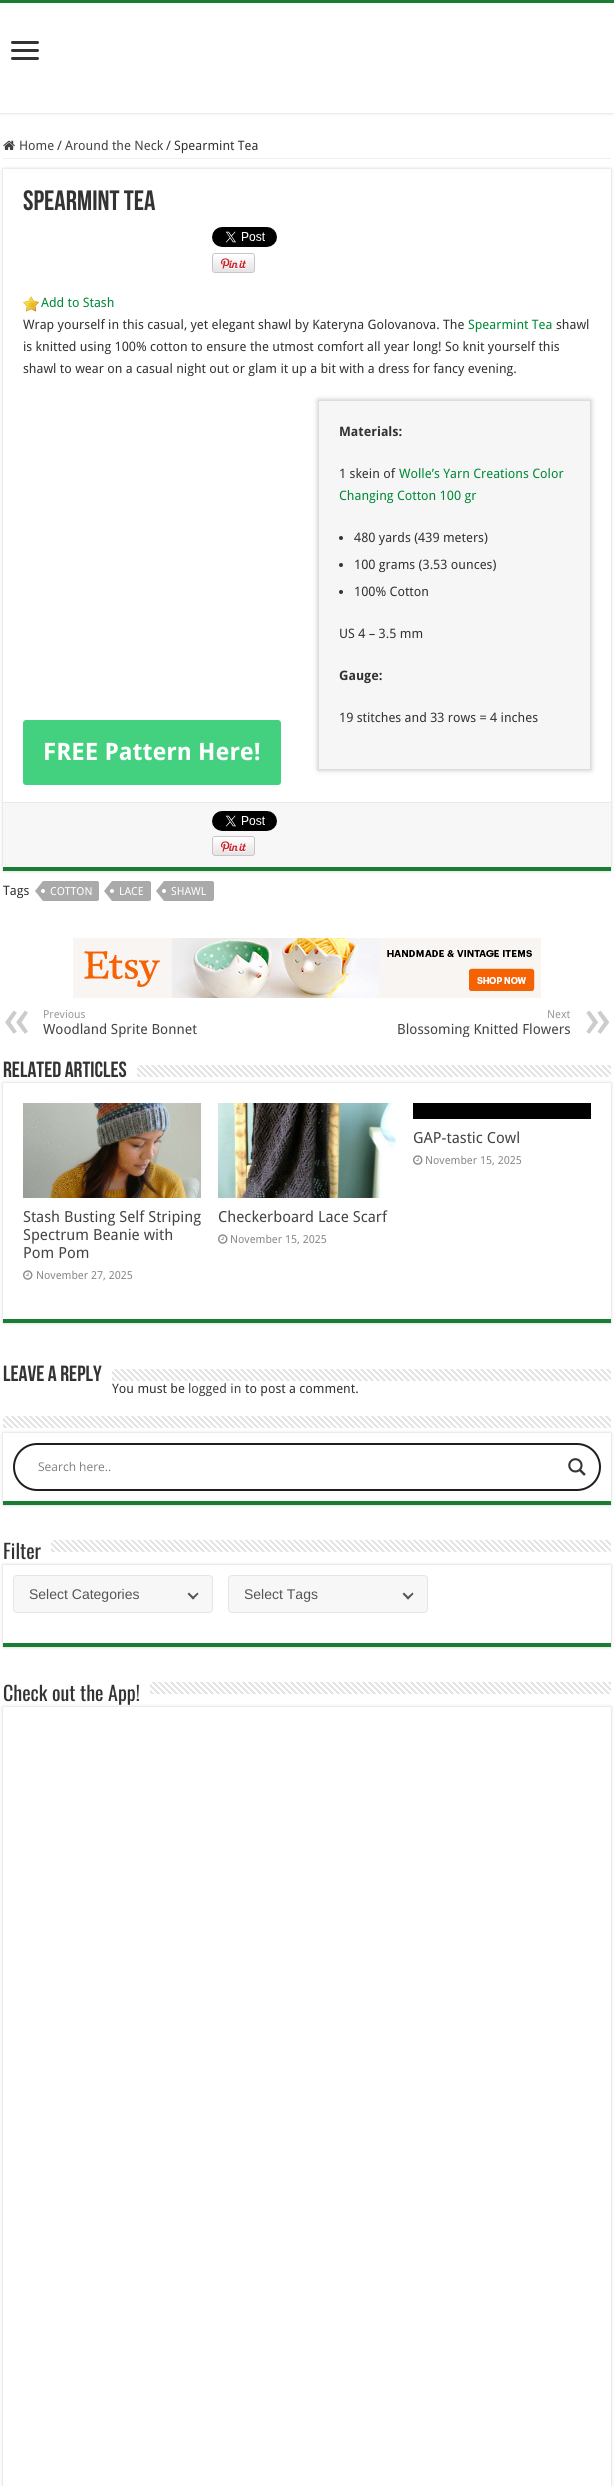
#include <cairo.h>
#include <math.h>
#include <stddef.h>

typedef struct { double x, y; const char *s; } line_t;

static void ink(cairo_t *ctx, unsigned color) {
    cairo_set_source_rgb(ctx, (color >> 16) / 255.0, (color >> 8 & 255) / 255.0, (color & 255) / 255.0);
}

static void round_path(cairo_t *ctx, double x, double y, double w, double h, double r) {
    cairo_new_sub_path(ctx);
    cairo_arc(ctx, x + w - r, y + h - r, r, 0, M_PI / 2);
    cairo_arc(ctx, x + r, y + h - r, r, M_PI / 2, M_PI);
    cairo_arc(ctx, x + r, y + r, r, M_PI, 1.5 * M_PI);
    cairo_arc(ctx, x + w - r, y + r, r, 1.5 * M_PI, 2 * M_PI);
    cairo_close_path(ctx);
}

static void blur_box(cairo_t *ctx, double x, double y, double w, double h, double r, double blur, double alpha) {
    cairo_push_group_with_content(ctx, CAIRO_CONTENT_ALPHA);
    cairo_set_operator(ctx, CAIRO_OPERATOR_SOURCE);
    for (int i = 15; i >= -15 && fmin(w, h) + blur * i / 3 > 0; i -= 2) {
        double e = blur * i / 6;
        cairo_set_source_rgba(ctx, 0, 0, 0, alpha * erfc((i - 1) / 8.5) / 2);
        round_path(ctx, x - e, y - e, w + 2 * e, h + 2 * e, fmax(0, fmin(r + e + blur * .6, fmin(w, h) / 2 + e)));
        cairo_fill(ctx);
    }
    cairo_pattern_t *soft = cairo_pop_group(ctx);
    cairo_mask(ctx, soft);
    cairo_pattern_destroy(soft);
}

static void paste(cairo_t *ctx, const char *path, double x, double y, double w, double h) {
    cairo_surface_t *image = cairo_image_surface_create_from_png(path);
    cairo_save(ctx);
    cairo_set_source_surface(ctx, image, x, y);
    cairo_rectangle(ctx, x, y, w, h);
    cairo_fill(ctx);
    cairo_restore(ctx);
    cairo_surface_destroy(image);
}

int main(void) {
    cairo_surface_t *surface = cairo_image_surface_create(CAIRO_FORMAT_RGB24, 614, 2486);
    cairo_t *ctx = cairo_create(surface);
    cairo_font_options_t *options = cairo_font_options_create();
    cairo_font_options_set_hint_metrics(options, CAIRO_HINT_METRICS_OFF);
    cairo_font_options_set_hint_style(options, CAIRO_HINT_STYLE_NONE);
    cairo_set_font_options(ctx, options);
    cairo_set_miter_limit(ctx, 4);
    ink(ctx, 0xFFFFFF);
    cairo_paint(ctx);
    cairo_save(ctx);
    cairo_rectangle(ctx, 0, 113, 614, 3);
    cairo_clip(ctx);
    ink(ctx, 0xCACACA);
    blur_box(ctx, 0, 0, 614, 113, 0, 1.5, 1);
    cairo_restore(ctx);
    ink(ctx, 0x1B7D32);
    cairo_rectangle(ctx, 0, 0, 614, 3);
    cairo_fill(ctx);
    ink(ctx, 0x333333);
    round_path(ctx, 11, 41, 28, 3, 1.5);
    cairo_fill(ctx);
    round_path(ctx, 11, 49, 28, 3, 1.5);
    cairo_fill(ctx);
    round_path(ctx, 11, 57, 28, 3, 1.5);
    cairo_fill(ctx);
    ink(ctx, 0xEEEEEE);
    cairo_rectangle(ctx, 3, 158, 608, 1);
    cairo_fill(ctx);
    paste(ctx, "media/1.png", 3, 140, 12, 10);
    cairo_select_font_face(ctx, "Droid Sans", CAIRO_FONT_SLANT_NORMAL, CAIRO_FONT_WEIGHT_NORMAL);
    cairo_set_font_size(ctx, 13);
    ink(ctx, 0x444444);
    cairo_move_to(ctx, 19, 150);
    cairo_show_text(ctx, "Home");
    ink(ctx, 0x333333);
    cairo_move_to(ctx, 57, 150);
    cairo_show_text(ctx, "/");
    ink(ctx, 0x444444);
    cairo_move_to(ctx, 65, 150);
    cairo_show_text(ctx, "Around the Neck");
    ink(ctx, 0x333333);
    cairo_move_to(ctx, 166, 150);
    cairo_show_text(ctx, "/");
    cairo_move_to(ctx, 174, 150);
    cairo_show_text(ctx, "Spearmint Tea");
    cairo_save(ctx);
    cairo_set_fill_rule(ctx, CAIRO_FILL_RULE_EVEN_ODD);
    cairo_new_path(ctx);
    cairo_move_to(ctx, 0, 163);
    cairo_line_to(ctx, 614, 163);
    cairo_line_to(ctx, 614, 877);
    cairo_line_to(ctx, 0, 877);
    cairo_close_path(ctx);
    cairo_move_to(ctx, 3, 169);
    cairo_line_to(ctx, 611, 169);
    cairo_line_to(ctx, 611, 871);
    cairo_line_to(ctx, 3, 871);
    cairo_close_path(ctx);
    cairo_clip(ctx);
    ink(ctx, 0xCACACA);
    blur_box(ctx, 3, 169, 608, 702, 0, 1.5, 1);
    cairo_restore(ctx);
    ink(ctx, 0x1B7D32);
    cairo_rectangle(ctx, 3, 867, 608, 4);
    cairo_fill(ctx);
    cairo_select_font_face(ctx, "Bebas Neue", CAIRO_FONT_SLANT_NORMAL, CAIRO_FONT_WEIGHT_BOLD);
    cairo_set_font_size(ctx, 28);
    ink(ctx, 0x333333);
    cairo_move_to(ctx, 23, 210);
    cairo_show_text(ctx, "Spearmint Tea");
    paste(ctx, "media/2.png", 212, 227, 65, 20);
    paste(ctx, "media/3.png", 212, 253, 43, 20);
    paste(ctx, "media/4.png", 23, 296, 16, 16);
    cairo_select_font_face(ctx, "Droid Sans", CAIRO_FONT_SLANT_NORMAL, CAIRO_FONT_WEIGHT_NORMAL);
    cairo_set_font_size(ctx, 13);
    ink(ctx, 0x008A37);
    cairo_move_to(ctx, 41, 307);
    cairo_show_text(ctx, "Add to Stash");
    ink(ctx, 0x333333);
    cairo_move_to(ctx, 23, 329);
    cairo_show_text(ctx, "Wrap yourself in this casual, yet elegant shawl by Kateryna Golovanova. The");
    ink(ctx, 0x008A37);
    cairo_move_to(ctx, 468, 329);
    cairo_show_text(ctx, "Spearmint Tea");
    ink(ctx, 0x333333);
    {
        static const line_t items[] = {
            {556, 329, "shawl"},
            {23, 351, "is knitted using 100% cotton to ensure the utmost comfort all year long! So knit yourself this"},
            {23, 373, "shawl to wear on a casual night out or glam it up a bit with a dress for fancy evening."},
        };
        for (size_t i = 0; i < sizeof items / sizeof *items; i++) {
            cairo_move_to(ctx, items[i].x, items[i].y);
            cairo_show_text(ctx, items[i].s);
        }
    }
    ink(ctx, 0x999999);
    blur_box(ctx, 318, 400, 273, 370, 0, 2.5, 0.6);
    ink(ctx, 0xF6F6F6);
    cairo_rectangle(ctx, 318.5, 400.5, 272, 369);
    cairo_fill_preserve(ctx);
    ink(ctx, 0xDDDDDD);
    cairo_set_line_width(ctx, 1);
    cairo_stroke(ctx);
    cairo_select_font_face(ctx, "Droid Sans", CAIRO_FONT_SLANT_NORMAL, CAIRO_FONT_WEIGHT_BOLD);
    ink(ctx, 0x333333);
    cairo_move_to(ctx, 339, 436);
    cairo_show_text(ctx, "Materials:");
    cairo_select_font_face(ctx, "Droid Sans", CAIRO_FONT_SLANT_NORMAL, CAIRO_FONT_WEIGHT_NORMAL);
    cairo_move_to(ctx, 339, 478);
    cairo_show_text(ctx, "1 skein of");
    ink(ctx, 0x008A37);
    cairo_move_to(ctx, 399, 478);
    cairo_show_text(ctx, "Wolle’s Yarn Creations Color");
    cairo_move_to(ctx, 339, 500);
    cairo_show_text(ctx, "Changing Cotton 100 gr");
    ink(ctx, 0x333333);
    cairo_new_path(ctx);
    cairo_arc(ctx, 341, 538, 2, 0, 2 * M_PI);
    cairo_fill(ctx);
    cairo_move_to(ctx, 354, 542);
    cairo_show_text(ctx, "480 yards (439 meters)");
    cairo_new_path(ctx);
    cairo_arc(ctx, 341, 565, 2, 0, 2 * M_PI);
    cairo_fill(ctx);
    cairo_move_to(ctx, 354, 569);
    cairo_show_text(ctx, "100 grams (3.53 ounces)");
    cairo_new_path(ctx);
    cairo_arc(ctx, 341, 592, 2, 0, 2 * M_PI);
    cairo_fill(ctx);
    cairo_move_to(ctx, 354, 596);
    cairo_show_text(ctx, "100% Cotton");
    cairo_move_to(ctx, 339, 638);
    cairo_show_text(ctx, "US 4 – 3.5 mm");
    cairo_select_font_face(ctx, "Droid Sans", CAIRO_FONT_SLANT_NORMAL, CAIRO_FONT_WEIGHT_BOLD);
    cairo_move_to(ctx, 339, 680);
    cairo_show_text(ctx, "Gauge:");
    cairo_select_font_face(ctx, "Droid Sans", CAIRO_FONT_SLANT_NORMAL, CAIRO_FONT_WEIGHT_NORMAL);
    cairo_move_to(ctx, 339, 722);
    cairo_show_text(ctx, "19 stitches and 33 rows = 4 inches");
    ink(ctx, 0x43D17F);
    round_path(ctx, 23, 720, 258, 65, 3);
    cairo_fill(ctx);
    cairo_select_font_face(ctx, "Droid Sans", CAIRO_FONT_SLANT_NORMAL, CAIRO_FONT_WEIGHT_BOLD);
    cairo_set_font_size(ctx, 24);
    ink(ctx, 0xFFFFFF);
    cairo_move_to(ctx, 43, 760);
    cairo_show_text(ctx, "FREE Pattern Here!");
    ink(ctx, 0xF7F7F7);
    cairo_rectangle(ctx, 3, 803, 608, 64);
    cairo_fill(ctx);
    ink(ctx, 0xEAEAEA);
    cairo_rectangle(ctx, 3, 802, 608, 1);
    cairo_fill(ctx);
    paste(ctx, "media/5.png", 212, 811, 65, 20);
    paste(ctx, "media/6.png", 212, 836, 43, 20);
    cairo_select_font_face(ctx, "Droid Sans", CAIRO_FONT_SLANT_NORMAL, CAIRO_FONT_WEIGHT_NORMAL);
    cairo_set_font_size(ctx, 13);
    ink(ctx, 0x333333);
    cairo_move_to(ctx, 3, 895);
    cairo_show_text(ctx, "Tags");
    ink(ctx, 0xAAAAAA);
    cairo_new_path(ctx);
    cairo_move_to(ctx, 43, 881);
    cairo_line_to(ctx, 97, 881);
    cairo_curve_to(ctx, 98, 881, 99, 882, 99, 883);
    cairo_line_to(ctx, 99, 899);
    cairo_curve_to(ctx, 99, 900, 98, 901, 97, 901);
    cairo_line_to(ctx, 43, 901);
    cairo_close_path(ctx);
    cairo_fill(ctx);
    cairo_new_path(ctx);
    cairo_move_to(ctx, 43, 881);
    cairo_line_to(ctx, 43, 901);
    cairo_line_to(ctx, 35, 891);
    cairo_close_path(ctx);
    cairo_fill(ctx);
    cairo_set_font_size(ctx, 11);
    ink(ctx, 0xFFFFFF);
    cairo_move_to(ctx, 50, 895);
    cairo_show_text(ctx, "COTTON");
    cairo_new_path(ctx);
    cairo_arc(ctx, 43, 891, 2, 0, 2 * M_PI);
    cairo_fill(ctx);
    ink(ctx, 0xAAAAAA);
    cairo_new_path(ctx);
    cairo_move_to(ctx, 112, 881);
    cairo_line_to(ctx, 149, 881);
    cairo_curve_to(ctx, 150, 881, 151, 882, 151, 883);
    cairo_line_to(ctx, 151, 899);
    cairo_curve_to(ctx, 151, 900, 150, 901, 149, 901);
    cairo_line_to(ctx, 112, 901);
    cairo_close_path(ctx);
    cairo_fill(ctx);
    cairo_new_path(ctx);
    cairo_move_to(ctx, 112, 881);
    cairo_line_to(ctx, 112, 901);
    cairo_line_to(ctx, 104, 891);
    cairo_close_path(ctx);
    cairo_fill(ctx);
    ink(ctx, 0xFFFFFF);
    cairo_move_to(ctx, 119, 895);
    cairo_show_text(ctx, "LACE");
    cairo_new_path(ctx);
    cairo_arc(ctx, 112, 891, 2, 0, 2 * M_PI);
    cairo_fill(ctx);
    ink(ctx, 0xAAAAAA);
    cairo_new_path(ctx);
    cairo_move_to(ctx, 164, 881);
    cairo_line_to(ctx, 212, 881);
    cairo_curve_to(ctx, 213, 881, 214, 882, 214, 883);
    cairo_line_to(ctx, 214, 899);
    cairo_curve_to(ctx, 214, 900, 213, 901, 212, 901);
    cairo_line_to(ctx, 164, 901);
    cairo_close_path(ctx);
    cairo_fill(ctx);
    cairo_new_path(ctx);
    cairo_move_to(ctx, 164, 881);
    cairo_line_to(ctx, 164, 901);
    cairo_line_to(ctx, 156, 891);
    cairo_close_path(ctx);
    cairo_fill(ctx);
    ink(ctx, 0xFFFFFF);
    cairo_move_to(ctx, 171, 895);
    cairo_show_text(ctx, "SHAWL");
    cairo_new_path(ctx);
    cairo_arc(ctx, 164, 891, 2, 0, 2 * M_PI);
    cairo_fill(ctx);
    paste(ctx, "media/7.png", 73, 938, 468, 60);
    cairo_set_font_size(ctx, 56);
    ink(ctx, 0xCCCCCC);
    cairo_move_to(ctx, 3, 1037);
    cairo_show_text(ctx, "«");
    cairo_set_font_size(ctx, 11);
    ink(ctx, 0x999999);
    cairo_move_to(ctx, 43, 1018);
    cairo_show_text(ctx, "Previous");
    cairo_set_font_size(ctx, 14);
    ink(ctx, 0x444444);
    cairo_move_to(ctx, 43, 1034);
    cairo_show_text(ctx, "Woodland Sprite Bonnet");
    cairo_set_font_size(ctx, 11);
    ink(ctx, 0x999999);
    cairo_move_to(ctx, 547, 1018);
    cairo_show_text(ctx, "Next");
    cairo_set_font_size(ctx, 56);
    ink(ctx, 0xCCCCCC);
    cairo_move_to(ctx, 584, 1037);
    cairo_show_text(ctx, "»");
    cairo_save(ctx);
    cairo_rectangle(ctx, 3, 1008, 608, 29);
    cairo_clip(ctx);
    cairo_set_font_size(ctx, 14);
    ink(ctx, 0x444444);
    cairo_move_to(ctx, 397, 1034);
    cairo_show_text(ctx, "Blossoming Knitted Flowers");
    cairo_restore(ctx);
    cairo_save(ctx);
    cairo_set_fill_rule(ctx, CAIRO_FILL_RULE_EVEN_ODD);
    cairo_new_path(ctx);
    cairo_move_to(ctx, 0, 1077);
    cairo_line_to(ctx, 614, 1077);
    cairo_line_to(ctx, 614, 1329);
    cairo_line_to(ctx, 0, 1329);
    cairo_close_path(ctx);
    cairo_move_to(ctx, 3, 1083);
    cairo_line_to(ctx, 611, 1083);
    cairo_line_to(ctx, 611, 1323);
    cairo_line_to(ctx, 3, 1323);
    cairo_close_path(ctx);
    cairo_clip(ctx);
    ink(ctx, 0xCACACA);
    blur_box(ctx, 3, 1083, 608, 240, 0, 1.5, 1);
    cairo_restore(ctx);
    cairo_select_font_face(ctx, "Bebas Neue", CAIRO_FONT_SLANT_NORMAL, CAIRO_FONT_WEIGHT_BOLD);
    cairo_set_font_size(ctx, 22);
    ink(ctx, 0x333333);
    cairo_move_to(ctx, 3, 1077);
    cairo_show_text(ctx, "Related Articles");
    paste(ctx, "media/8.png", 137, 1065, 474, 12);
    ink(ctx, 0x1B7D32);
    cairo_rectangle(ctx, 3, 1319, 608, 4);
    cairo_fill(ctx);
    ink(ctx, 0x000000);
    cairo_rectangle(ctx, 413, 1103, 178, 16);
    cairo_fill(ctx);
    cairo_select_font_face(ctx, "Droid Sans", CAIRO_FONT_SLANT_NORMAL, CAIRO_FONT_WEIGHT_NORMAL);
    cairo_set_font_size(ctx, 15.25);
    ink(ctx, 0x444444);
    cairo_move_to(ctx, 413, 1143);
    cairo_show_text(ctx, "GAP-tastic Cowl");
    paste(ctx, "media/9.png", 413, 1155, 10, 10);
    cairo_set_font_size(ctx, 11);
    ink(ctx, 0x888888);
    cairo_move_to(ctx, 425, 1164);
    cairo_show_text(ctx, "November 15, 2025");
    paste(ctx, "media/10.png", 23, 1103, 178, 95);
    cairo_set_font_size(ctx, 15.25);
    ink(ctx, 0x444444);
    {
        static const line_t items[] = {
            {23, 1222, "Stash Busting Self Striping"},
            {23, 1240, "Spectrum Beanie with"},
            {23, 1258, "Pom Pom"},
        };
        for (size_t i = 0; i < sizeof items / sizeof *items; i++) {
            cairo_move_to(ctx, items[i].x, items[i].y);
            cairo_show_text(ctx, items[i].s);
        }
    }
    paste(ctx, "media/9.png", 23, 1270, 10, 10);
    cairo_set_font_size(ctx, 11);
    ink(ctx, 0x888888);
    cairo_move_to(ctx, 36, 1279);
    cairo_show_text(ctx, "November 27, 2025");
    paste(ctx, "media/11.png", 218, 1103, 178, 95);
    cairo_set_font_size(ctx, 15.25);
    ink(ctx, 0x444444);
    cairo_move_to(ctx, 218, 1222);
    cairo_show_text(ctx, "Checkerboard Lace Scarf");
    paste(ctx, "media/9.png", 218, 1234, 10, 10);
    cairo_set_font_size(ctx, 11);
    ink(ctx, 0x888888);
    cairo_move_to(ctx, 230, 1243);
    cairo_show_text(ctx, "November 15, 2025");
    cairo_select_font_face(ctx, "Bebas Neue", CAIRO_FONT_SLANT_NORMAL, CAIRO_FONT_WEIGHT_BOLD);
    cairo_set_font_size(ctx, 22);
    ink(ctx, 0x333333);
    cairo_move_to(ctx, 3, 1381);
    cairo_show_text(ctx, "Leave a Reply");
    paste(ctx, "media/12.png", 112, 1369, 499, 12);
    cairo_select_font_face(ctx, "Droid Sans", CAIRO_FONT_SLANT_NORMAL, CAIRO_FONT_WEIGHT_NORMAL);
    cairo_set_font_size(ctx, 13);
    cairo_move_to(ctx, 112, 1393);
    cairo_show_text(ctx, "You must be");
    ink(ctx, 0x444444);
    cairo_move_to(ctx, 188, 1393);
    cairo_show_text(ctx, "logged in");
    ink(ctx, 0x333333);
    cairo_move_to(ctx, 245, 1393);
    cairo_show_text(ctx, "to post a comment.");
    cairo_save(ctx);
    cairo_set_fill_rule(ctx, CAIRO_FILL_RULE_EVEN_ODD);
    cairo_new_path(ctx);
    cairo_move_to(ctx, 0, 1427);
    cairo_line_to(ctx, 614, 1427);
    cairo_line_to(ctx, 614, 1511);
    cairo_line_to(ctx, 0, 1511);
    cairo_close_path(ctx);
    cairo_move_to(ctx, 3, 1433);
    cairo_line_to(ctx, 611, 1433);
    cairo_line_to(ctx, 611, 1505);
    cairo_line_to(ctx, 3, 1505);
    cairo_close_path(ctx);
    cairo_clip(ctx);
    ink(ctx, 0xCACACA);
    blur_box(ctx, 3, 1433, 608, 72, 0, 1.5, 1);
    cairo_restore(ctx);
    paste(ctx, "media/13.png", 3, 1416, 608, 12);
    ink(ctx, 0x1B7D32);
    cairo_rectangle(ctx, 3, 1501, 608, 4);
    cairo_fill(ctx);
    round_path(ctx, 14, 1444, 586, 46, 23);
    ink(ctx, 0x1E1E1E);
    cairo_set_line_width(ctx, 2);
    cairo_stroke(ctx);
    cairo_select_font_face(ctx, "Open Sans", CAIRO_FONT_SLANT_NORMAL, CAIRO_FONT_WEIGHT_NORMAL);
    cairo_set_font_size(ctx, 12);
    ink(ctx, 0x7D7D7D);
    cairo_move_to(ctx, 38, 1471);
    cairo_show_text(ctx, "Search here..");
    paste(ctx, "media/14.png", 568, 1458, 18, 18);
    cairo_save(ctx);
    cairo_set_fill_rule(ctx, CAIRO_FILL_RULE_EVEN_ODD);
    cairo_new_path(ctx);
    cairo_move_to(ctx, 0, 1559);
    cairo_line_to(ctx, 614, 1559);
    cairo_line_to(ctx, 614, 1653);
    cairo_line_to(ctx, 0, 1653);
    cairo_close_path(ctx);
    cairo_move_to(ctx, 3, 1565);
    cairo_line_to(ctx, 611, 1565);
    cairo_line_to(ctx, 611, 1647);
    cairo_line_to(ctx, 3, 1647);
    cairo_close_path(ctx);
    cairo_clip(ctx);
    ink(ctx, 0xCACACA);
    blur_box(ctx, 3, 1565, 608, 82, 0, 1.5, 1);
    cairo_restore(ctx);
    cairo_select_font_face(ctx, "Oswald", CAIRO_FONT_SLANT_NORMAL, CAIRO_FONT_WEIGHT_NORMAL);
    cairo_set_font_size(ctx, 20);
    ink(ctx, 0x333333);
    cairo_move_to(ctx, 3, 1559);
    cairo_show_text(ctx, "Filter");
    paste(ctx, "media/15.png", 51, 1540, 560, 12);
    ink(ctx, 0x1B7D32);
    cairo_rectangle(ctx, 3, 1643, 608, 4);
    cairo_fill(ctx);
    ink(ctx, 0xF7F7F7);
    round_path(ctx, 13.5, 1575.5, 199, 37, 3.5);
    cairo_fill_preserve(ctx);
    ink(ctx, 0xE5E5E5);
    cairo_set_line_width(ctx, 1);
    cairo_stroke(ctx);
    cairo_select_font_face(ctx, "Liberation Sans", CAIRO_FONT_SLANT_NORMAL, CAIRO_FONT_WEIGHT_NORMAL);
    cairo_set_font_size(ctx, 14);
    ink(ctx, 0x555555);
    cairo_move_to(ctx, 29, 1599);
    cairo_show_text(ctx, "Select Categories");
    cairo_new_path(ctx);
    cairo_move_to(ctx, 197.5, 1592.5);
    cairo_line_to(ctx, 198.5, 1594);
    cairo_line_to(ctx, 193, 1599.5);
    cairo_line_to(ctx, 191.5, 1598);
    cairo_close_path(ctx);
    cairo_fill(ctx);
    cairo_new_path(ctx);
    cairo_move_to(ctx, 189, 1592.5);
    cairo_line_to(ctx, 194.5, 1598);
    cairo_line_to(ctx, 193, 1599.5);
    cairo_line_to(ctx, 187.5, 1594);
    cairo_close_path(ctx);
    cairo_fill(ctx);
    ink(ctx, 0xF7F7F7);
    round_path(ctx, 228.5, 1575.5, 199, 37, 3.5);
    cairo_fill_preserve(ctx);
    ink(ctx, 0xE5E5E5);
    cairo_stroke(ctx);
    ink(ctx, 0x555555);
    cairo_move_to(ctx, 244, 1599);
    cairo_show_text(ctx, "Select Tags");
    cairo_new_path(ctx);
    cairo_move_to(ctx, 412.5, 1592.5);
    cairo_line_to(ctx, 413.5, 1594);
    cairo_line_to(ctx, 408, 1599.5);
    cairo_line_to(ctx, 406.5, 1598);
    cairo_close_path(ctx);
    cairo_fill(ctx);
    cairo_new_path(ctx);
    cairo_move_to(ctx, 404, 1592.5);
    cairo_line_to(ctx, 409.5, 1598);
    cairo_line_to(ctx, 408, 1599.5);
    cairo_line_to(ctx, 402.5, 1594);
    cairo_close_path(ctx);
    cairo_fill(ctx);
    cairo_save(ctx);
    cairo_set_fill_rule(ctx, CAIRO_FILL_RULE_EVEN_ODD);
    cairo_new_path(ctx);
    cairo_move_to(ctx, 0, 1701);
    cairo_line_to(ctx, 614, 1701);
    cairo_line_to(ctx, 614, 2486);
    cairo_line_to(ctx, 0, 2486);
    cairo_close_path(ctx);
    cairo_move_to(ctx, 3, 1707);
    cairo_line_to(ctx, 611, 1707);
    cairo_line_to(ctx, 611, 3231);
    cairo_line_to(ctx, 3, 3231);
    cairo_close_path(ctx);
    cairo_clip(ctx);
    ink(ctx, 0xCACACA);
    blur_box(ctx, 3, 1707, 608, 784, 0, 1.5, 1);
    cairo_restore(ctx);
    cairo_select_font_face(ctx, "Oswald", CAIRO_FONT_SLANT_NORMAL, CAIRO_FONT_WEIGHT_NORMAL);
    cairo_set_font_size(ctx, 20);
    ink(ctx, 0x333333);
    cairo_move_to(ctx, 3, 1701);
    cairo_show_text(ctx, "Check out the App!");
    paste(ctx, "media/16.png", 150, 1682, 461, 12);
    cairo_surface_write_to_png(surface, "image.png");
    cairo_font_options_destroy(options);
    cairo_destroy(ctx);
    cairo_surface_destroy(surface);
    return 0;
}
